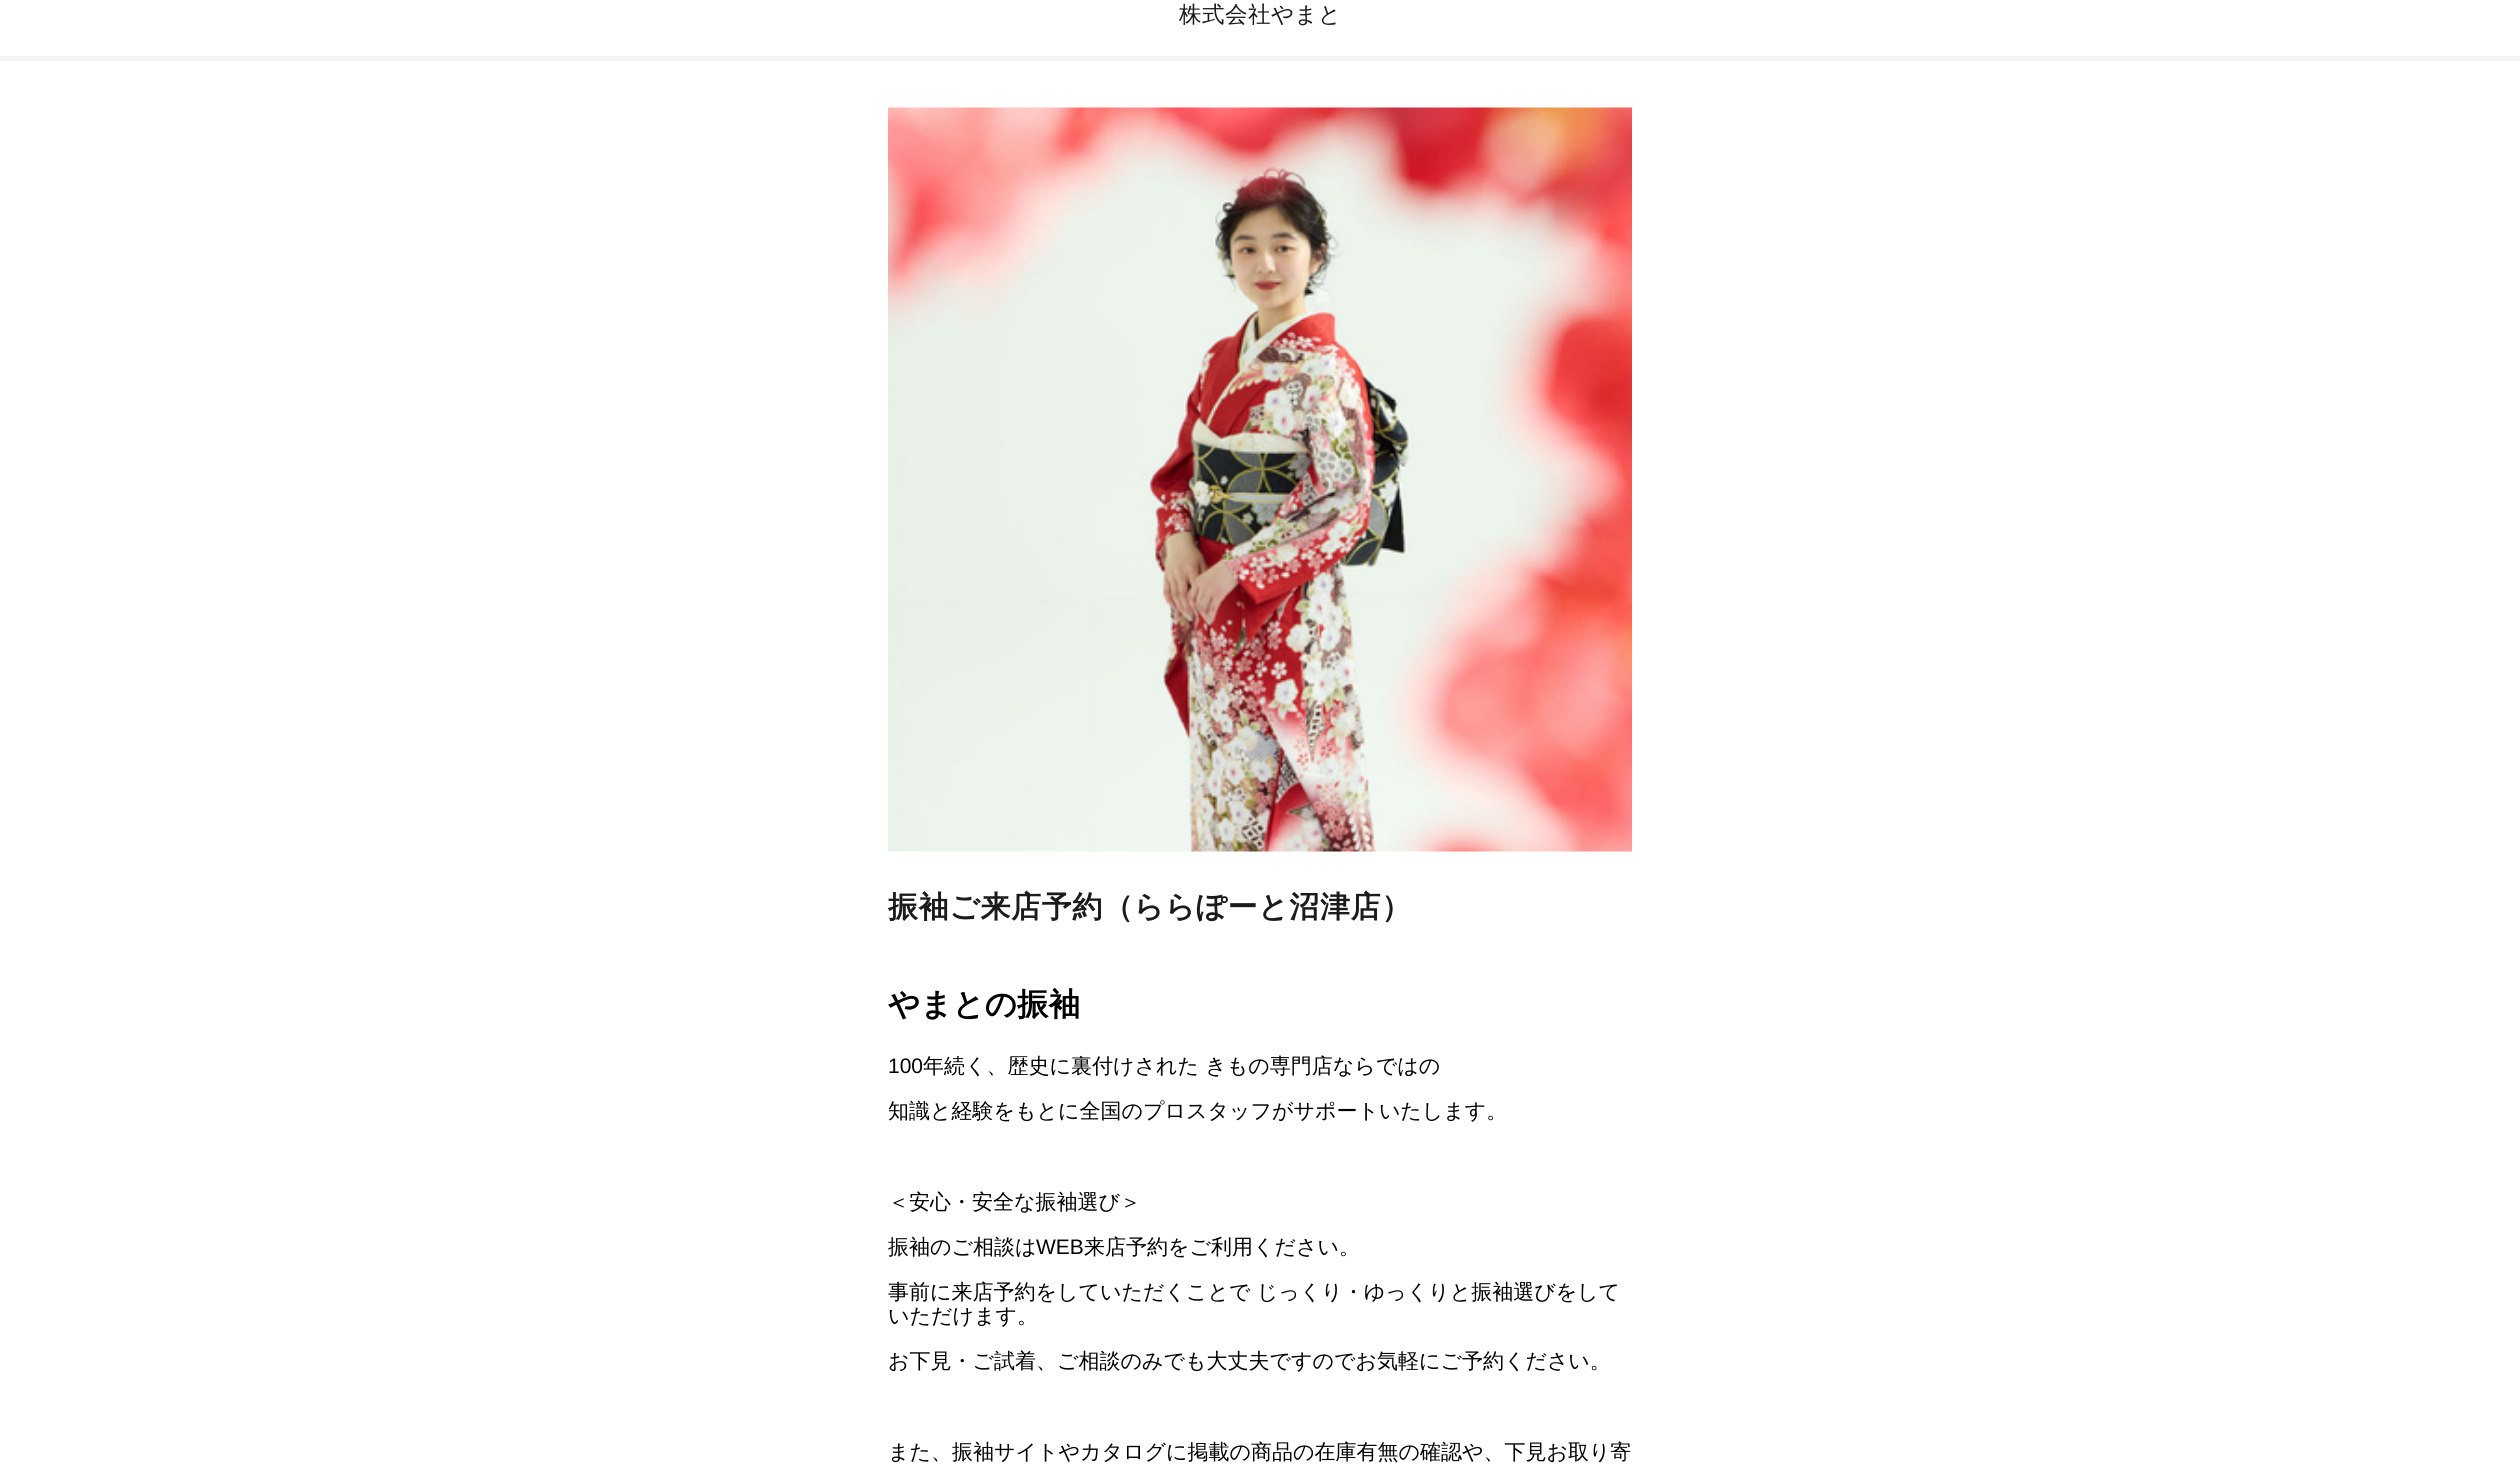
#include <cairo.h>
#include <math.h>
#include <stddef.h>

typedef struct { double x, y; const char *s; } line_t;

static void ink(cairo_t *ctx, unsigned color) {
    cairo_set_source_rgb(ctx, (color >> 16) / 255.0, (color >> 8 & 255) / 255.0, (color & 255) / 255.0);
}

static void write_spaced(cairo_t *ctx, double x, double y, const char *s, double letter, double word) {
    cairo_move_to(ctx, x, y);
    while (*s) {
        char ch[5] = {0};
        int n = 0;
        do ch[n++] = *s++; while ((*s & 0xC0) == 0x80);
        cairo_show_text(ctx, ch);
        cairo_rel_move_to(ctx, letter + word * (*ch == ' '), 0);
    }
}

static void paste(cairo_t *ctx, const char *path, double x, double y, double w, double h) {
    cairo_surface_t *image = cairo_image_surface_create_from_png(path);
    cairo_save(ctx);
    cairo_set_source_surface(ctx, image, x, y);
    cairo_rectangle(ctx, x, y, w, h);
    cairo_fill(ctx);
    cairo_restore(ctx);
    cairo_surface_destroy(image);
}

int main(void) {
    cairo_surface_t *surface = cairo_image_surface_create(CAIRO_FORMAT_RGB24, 2520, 1476);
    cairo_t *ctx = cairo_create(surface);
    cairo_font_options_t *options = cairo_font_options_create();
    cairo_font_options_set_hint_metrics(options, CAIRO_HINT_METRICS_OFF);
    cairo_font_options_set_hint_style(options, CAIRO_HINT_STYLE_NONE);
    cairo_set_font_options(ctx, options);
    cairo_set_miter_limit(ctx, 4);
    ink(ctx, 0xFFFFFF);
    cairo_paint(ctx);
    ink(ctx, 0xF4F4F4);
    cairo_rectangle(ctx, 0, 56, 2520, 5);
    cairo_fill(ctx);
    cairo_select_font_face(ctx, "WenQuanYi Zen Hei Medium", CAIRO_FONT_SLANT_NORMAL, CAIRO_FONT_WEIGHT_NORMAL);
    cairo_set_font_size(ctx, 22.5);
    ink(ctx, 0x1B1B1B);
    write_spaced(ctx, 1179, 22, "株式会社やまと", 0.5, 0);
    paste(ctx, "media/1.png", 888, 107, 744, 745);
    cairo_select_font_face(ctx, "WenQuanYi Zen Hei", CAIRO_FONT_SLANT_NORMAL, CAIRO_FONT_WEIGHT_BOLD);
    cairo_set_font_size(ctx, 30);
    write_spaced(ctx, 888, 917, "振袖ご来店予約（ららぽーと沼津店）", 0.6, 0);
    cairo_set_font_size(ctx, 31.5);
    ink(ctx, 0x000000);
    cairo_move_to(ctx, 888, 1015);
    cairo_show_text(ctx, "やまとの振袖");
    cairo_select_font_face(ctx, "Liberation Sans", CAIRO_FONT_SLANT_NORMAL, CAIRO_FONT_WEIGHT_NORMAL);
    cairo_set_font_size(ctx, 21);
    cairo_move_to(ctx, 888, 1073);
    cairo_show_text(ctx, "100");
    cairo_select_font_face(ctx, "WenQuanYi Zen Hei Medium", CAIRO_FONT_SLANT_NORMAL, CAIRO_FONT_WEIGHT_NORMAL);
    {
        static const line_t items[] = {
            {923, 1073, "年続く、歴史に裏付けされた きもの専門店ならではの"},
            {888, 1118, "知識と経験をもとに全国のプロスタッフがサポートいたします。"},
            {888, 1209, "＜安心・安全な振袖選び＞"},
            {888, 1254, "振袖のご相談は"},
        };
        for (size_t i = 0; i < sizeof items / sizeof *items; i++) {
            cairo_move_to(ctx, items[i].x, items[i].y);
            cairo_show_text(ctx, items[i].s);
        }
    }
    cairo_select_font_face(ctx, "Liberation Sans", CAIRO_FONT_SLANT_NORMAL, CAIRO_FONT_WEIGHT_NORMAL);
    cairo_move_to(ctx, 1036, 1254);
    cairo_show_text(ctx, "WEB");
    cairo_select_font_face(ctx, "WenQuanYi Zen Hei Medium", CAIRO_FONT_SLANT_NORMAL, CAIRO_FONT_WEIGHT_NORMAL);
    {
        static const line_t items[] = {
            {1084, 1254, "来店予約をご利用ください。"},
            {888, 1299, "事前に来店予約をしていただくことで じっくり・ゆっくりと振袖選びをして"},
            {888, 1323, "いただけます。"},
            {888, 1368, "お下見・ご試着、ご相談のみでも大丈夫ですのでお気軽にご予約ください。"},
            {888, 1459, "また、振袖サイトやカタログに掲載の商品の在庫有無の確認や、下見お取り寄"},
        };
        for (size_t i = 0; i < sizeof items / sizeof *items; i++) {
            cairo_move_to(ctx, items[i].x, items[i].y);
            cairo_show_text(ctx, items[i].s);
        }
    }
    cairo_surface_write_to_png(surface, "image.png");
    cairo_font_options_destroy(options);
    cairo_destroy(ctx);
    cairo_surface_destroy(surface);
    return 0;
}
